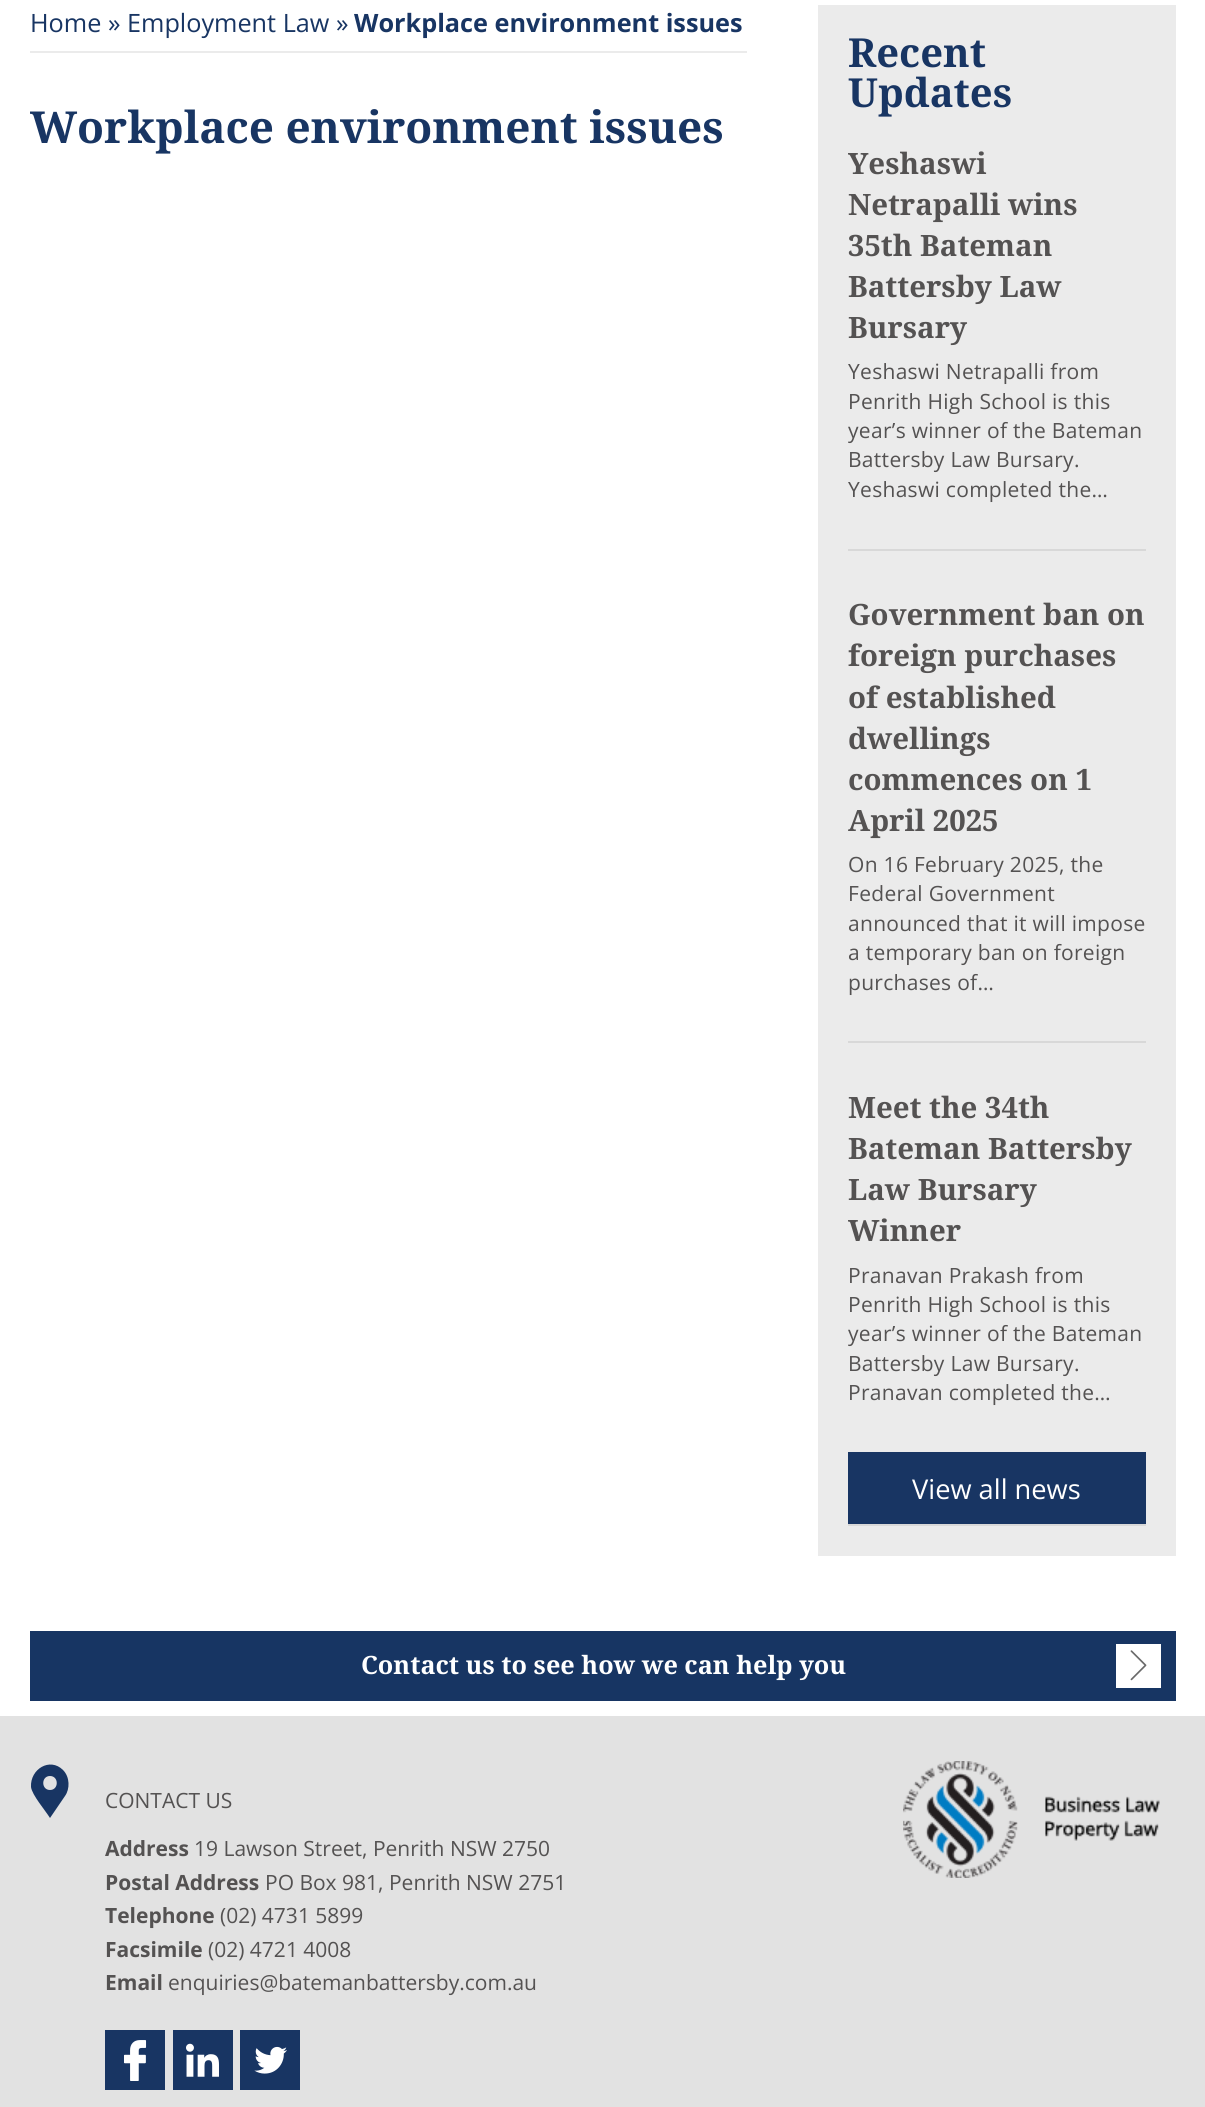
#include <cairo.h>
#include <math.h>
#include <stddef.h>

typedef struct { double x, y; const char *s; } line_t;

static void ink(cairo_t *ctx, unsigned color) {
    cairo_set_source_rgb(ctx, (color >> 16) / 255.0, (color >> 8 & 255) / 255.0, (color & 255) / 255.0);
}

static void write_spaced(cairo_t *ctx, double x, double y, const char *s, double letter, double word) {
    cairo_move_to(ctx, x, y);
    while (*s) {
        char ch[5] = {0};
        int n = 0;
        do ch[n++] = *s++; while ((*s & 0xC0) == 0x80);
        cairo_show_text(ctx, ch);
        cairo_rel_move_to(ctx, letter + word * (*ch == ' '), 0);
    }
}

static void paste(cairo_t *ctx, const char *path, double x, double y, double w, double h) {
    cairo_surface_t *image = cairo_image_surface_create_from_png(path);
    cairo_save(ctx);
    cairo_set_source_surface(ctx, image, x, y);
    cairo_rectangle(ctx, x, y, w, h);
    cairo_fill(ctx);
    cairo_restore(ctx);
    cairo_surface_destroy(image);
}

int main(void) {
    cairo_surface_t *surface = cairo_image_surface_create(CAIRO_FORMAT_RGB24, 1205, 2107);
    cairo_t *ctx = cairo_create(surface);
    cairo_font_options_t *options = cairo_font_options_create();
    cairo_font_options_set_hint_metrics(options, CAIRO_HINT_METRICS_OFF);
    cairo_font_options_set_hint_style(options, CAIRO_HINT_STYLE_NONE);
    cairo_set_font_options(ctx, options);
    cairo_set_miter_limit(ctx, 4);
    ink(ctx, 0xFFFFFF);
    cairo_paint(ctx);
    ink(ctx, 0xEBEBEB);
    cairo_rectangle(ctx, 30, 51, 717, 2);
    cairo_fill(ctx);
    cairo_select_font_face(ctx, "Open Sans", CAIRO_FONT_SLANT_NORMAL, CAIRO_FONT_WEIGHT_NORMAL);
    cairo_set_font_size(ctx, 25.25);
    ink(ctx, 0x183563);
    cairo_move_to(ctx, 30, 32);
    cairo_show_text(ctx, "Home » Employment Law »");
    cairo_select_font_face(ctx, "Open Sans", CAIRO_FONT_SLANT_NORMAL, CAIRO_FONT_WEIGHT_BOLD);
    cairo_move_to(ctx, 354, 32);
    cairo_show_text(ctx, "Workplace environment issues");
    cairo_select_font_face(ctx, "Droid Serif", CAIRO_FONT_SLANT_NORMAL, CAIRO_FONT_WEIGHT_BOLD);
    cairo_set_font_size(ctx, 44.1);
    cairo_move_to(ctx, 30, 143);
    cairo_show_text(ctx, "Workplace environment issues");
    ink(ctx, 0xEBEBEB);
    cairo_rectangle(ctx, 818, 5, 358, 1551);
    cairo_fill(ctx);
    cairo_set_font_size(ctx, 40);
    ink(ctx, 0x183563);
    cairo_move_to(ctx, 848, 67);
    cairo_show_text(ctx, "Recent");
    cairo_move_to(ctx, 848, 107);
    cairo_show_text(ctx, "Updates");
    ink(ctx, 0xD8D8D8);
    cairo_rectangle(ctx, 848, 549, 298, 2);
    cairo_fill(ctx);
    cairo_set_font_size(ctx, 29.4);
    ink(ctx, 0x545252);
    {
        static const line_t items[] = {
            {848, 174, "Yeshaswi"},
            {848, 215, "Netrapalli wins"},
            {848, 256, "35th Bateman"},
            {848, 297, "Battersby Law"},
            {848, 338, "Bursary"},
        };
        for (size_t i = 0; i < sizeof items / sizeof *items; i++) {
            cairo_move_to(ctx, items[i].x, items[i].y);
            cairo_show_text(ctx, items[i].s);
        }
    }
    cairo_select_font_face(ctx, "Open Sans", CAIRO_FONT_SLANT_NORMAL, CAIRO_FONT_WEIGHT_NORMAL);
    cairo_set_font_size(ctx, 21);
    {
        static const line_t items[] = {
            {848, 379, "Yeshaswi Netrapalli from"},
            {848, 409, "Penrith High School is this"},
            {848, 438, "year’s winner of the Bateman"},
            {848, 467, "Battersby Law Bursary."},
            {848, 497, "Yeshaswi completed the…"},
        };
        for (size_t i = 0; i < sizeof items / sizeof *items; i++) {
            write_spaced(ctx, items[i].x, items[i].y, items[i].s, 0.3, 0);
        }
    }
    ink(ctx, 0xD8D8D8);
    cairo_rectangle(ctx, 848, 1041, 298, 2);
    cairo_fill(ctx);
    cairo_select_font_face(ctx, "Droid Serif", CAIRO_FONT_SLANT_NORMAL, CAIRO_FONT_WEIGHT_BOLD);
    cairo_set_font_size(ctx, 29.4);
    ink(ctx, 0x545252);
    {
        static const line_t items[] = {
            {848, 625, "Government ban on"},
            {848, 666, "foreign purchases"},
            {848, 708, "of established"},
            {848, 749, "dwellings"},
            {848, 790, "commences on 1"},
            {848, 831, "April 2025"},
        };
        for (size_t i = 0; i < sizeof items / sizeof *items; i++) {
            cairo_move_to(ctx, items[i].x, items[i].y);
            cairo_show_text(ctx, items[i].s);
        }
    }
    cairo_select_font_face(ctx, "Open Sans", CAIRO_FONT_SLANT_NORMAL, CAIRO_FONT_WEIGHT_NORMAL);
    cairo_set_font_size(ctx, 21);
    {
        static const line_t items[] = {
            {848, 872, "On 16 February 2025, the"},
            {848, 901, "Federal Government"},
            {848, 931, "announced that it will impose"},
            {848, 960, "a temporary ban on foreign"},
            {848, 990, "purchases of…"},
        };
        for (size_t i = 0; i < sizeof items / sizeof *items; i++) {
            write_spaced(ctx, items[i].x, items[i].y, items[i].s, 0.3, 0);
        }
    }
    cairo_select_font_face(ctx, "Droid Serif", CAIRO_FONT_SLANT_NORMAL, CAIRO_FONT_WEIGHT_BOLD);
    cairo_set_font_size(ctx, 29.4);
    {
        static const line_t items[] = {
            {848, 1118, "Meet the 34th"},
            {848, 1159, "Bateman Battersby"},
            {848, 1200, "Law Bursary"},
            {848, 1241, "Winner"},
        };
        for (size_t i = 0; i < sizeof items / sizeof *items; i++) {
            cairo_move_to(ctx, items[i].x, items[i].y);
            cairo_show_text(ctx, items[i].s);
        }
    }
    cairo_select_font_face(ctx, "Open Sans", CAIRO_FONT_SLANT_NORMAL, CAIRO_FONT_WEIGHT_NORMAL);
    cairo_set_font_size(ctx, 21);
    {
        static const line_t items[] = {
            {848, 1283, "Pranavan Prakash from"},
            {848, 1312, "Penrith High School is this"},
            {848, 1341, "year’s winner of the Bateman"},
            {848, 1371, "Battersby Law Bursary."},
            {848, 1400, "Pranavan completed the…"},
        };
        for (size_t i = 0; i < sizeof items / sizeof *items; i++) {
            write_spaced(ctx, items[i].x, items[i].y, items[i].s, 0.3, 0);
        }
    }
    ink(ctx, 0x183563);
    cairo_rectangle(ctx, 848, 1452, 298, 72);
    cairo_fill(ctx);
    ink(ctx, 0xD8D8D8);
    cairo_rectangle(ctx, 848, 1524, 298, 2);
    cairo_fill(ctx);
    cairo_set_font_size(ctx, 27.25);
    ink(ctx, 0xFFFFFF);
    cairo_move_to(ctx, 912, 1499);
    cairo_show_text(ctx, "View all news");
    ink(ctx, 0x173563);
    cairo_rectangle(ctx, 30, 1631, 1146, 70);
    cairo_fill(ctx);
    cairo_select_font_face(ctx, "Droid Serif", CAIRO_FONT_SLANT_NORMAL, CAIRO_FONT_WEIGHT_BOLD);
    cairo_set_font_size(ctx, 25.25);
    ink(ctx, 0xFFFFFF);
    cairo_move_to(ctx, 361, 1674);
    cairo_show_text(ctx, "Contact us to see how we can help you");
    cairo_rectangle(ctx, 1116, 1644, 45, 44);
    cairo_fill(ctx);
    paste(ctx, "media/1.png", 1130, 1650, 17, 31);
    ink(ctx, 0xE2E2E2);
    cairo_rectangle(ctx, 0, 1716, 1205, 391);
    cairo_fill(ctx);
    ink(ctx, 0x183563);
    cairo_new_path(ctx);
    cairo_move_to(ctx, 63, 1770);
    cairo_curve_to(ctx, 50, 1757, 30, 1769, 31, 1787);
    cairo_curve_to(ctx, 32, 1795, 45, 1810, 50, 1818);
    cairo_line_to(ctx, 65, 1796);
    cairo_curve_to(ctx, 70, 1789, 70, 1777, 63, 1770);
    cairo_close_path(ctx);
    cairo_move_to(ctx, 50, 1790);
    cairo_curve_to(ctx, 41, 1790, 41, 1776, 50, 1776);
    cairo_curve_to(ctx, 59, 1776, 59, 1790, 50, 1790);
    cairo_close_path(ctx);
    cairo_fill(ctx);
    cairo_select_font_face(ctx, "Open Sans", CAIRO_FONT_SLANT_NORMAL, CAIRO_FONT_WEIGHT_NORMAL);
    cairo_set_font_size(ctx, 21);
    ink(ctx, 0x545252);
    cairo_move_to(ctx, 105, 1808);
    cairo_show_text(ctx, "CONTACT US");
    cairo_select_font_face(ctx, "Open Sans", CAIRO_FONT_SLANT_NORMAL, CAIRO_FONT_WEIGHT_BOLD);
    cairo_move_to(ctx, 105, 1856);
    cairo_show_text(ctx, "Address");
    cairo_select_font_face(ctx, "Open Sans", CAIRO_FONT_SLANT_NORMAL, CAIRO_FONT_WEIGHT_NORMAL);
    cairo_move_to(ctx, 194, 1856);
    cairo_show_text(ctx, "19 Lawson Street, Penrith NSW 2750");
    cairo_select_font_face(ctx, "Open Sans", CAIRO_FONT_SLANT_NORMAL, CAIRO_FONT_WEIGHT_BOLD);
    cairo_move_to(ctx, 105, 1890);
    cairo_show_text(ctx, "Postal Address");
    cairo_select_font_face(ctx, "Open Sans", CAIRO_FONT_SLANT_NORMAL, CAIRO_FONT_WEIGHT_NORMAL);
    cairo_move_to(ctx, 265, 1890);
    cairo_show_text(ctx, "PO Box 981, Penrith NSW 2751");
    cairo_select_font_face(ctx, "Open Sans", CAIRO_FONT_SLANT_NORMAL, CAIRO_FONT_WEIGHT_BOLD);
    cairo_move_to(ctx, 105, 1923);
    cairo_show_text(ctx, "Telephone");
    cairo_select_font_face(ctx, "Open Sans", CAIRO_FONT_SLANT_NORMAL, CAIRO_FONT_WEIGHT_NORMAL);
    cairo_move_to(ctx, 220, 1923);
    cairo_show_text(ctx, "(02) 4731 5899");
    cairo_select_font_face(ctx, "Open Sans", CAIRO_FONT_SLANT_NORMAL, CAIRO_FONT_WEIGHT_BOLD);
    cairo_move_to(ctx, 105, 1957);
    cairo_show_text(ctx, "Facsimile");
    cairo_select_font_face(ctx, "Open Sans", CAIRO_FONT_SLANT_NORMAL, CAIRO_FONT_WEIGHT_NORMAL);
    cairo_move_to(ctx, 208, 1957);
    cairo_show_text(ctx, "(02) 4721 4008");
    cairo_select_font_face(ctx, "Open Sans", CAIRO_FONT_SLANT_NORMAL, CAIRO_FONT_WEIGHT_BOLD);
    cairo_move_to(ctx, 105, 1990);
    cairo_show_text(ctx, "Email");
    cairo_select_font_face(ctx, "Open Sans", CAIRO_FONT_SLANT_NORMAL, CAIRO_FONT_WEIGHT_NORMAL);
    cairo_move_to(ctx, 168, 1990);
    cairo_show_text(ctx, "enquiries@batemanbattersby.com.au");
    paste(ctx, "media/2.png", 903, 1761, 257, 117);
    ink(ctx, 0x183563);
    cairo_rectangle(ctx, 105, 2030, 60, 60);
    cairo_fill(ctx);
    paste(ctx, "media/3.png", 124, 2040, 23, 41);
    cairo_rectangle(ctx, 173, 2030, 60, 60);
    cairo_fill(ctx);
    paste(ctx, "media/4.png", 186, 2043, 33, 34);
    cairo_rectangle(ctx, 240, 2030, 60, 60);
    cairo_fill(ctx);
    paste(ctx, "media/5.png", 254, 2046, 33, 28);
    cairo_surface_write_to_png(surface, "image.png");
    cairo_font_options_destroy(options);
    cairo_destroy(ctx);
    cairo_surface_destroy(surface);
    return 0;
}
